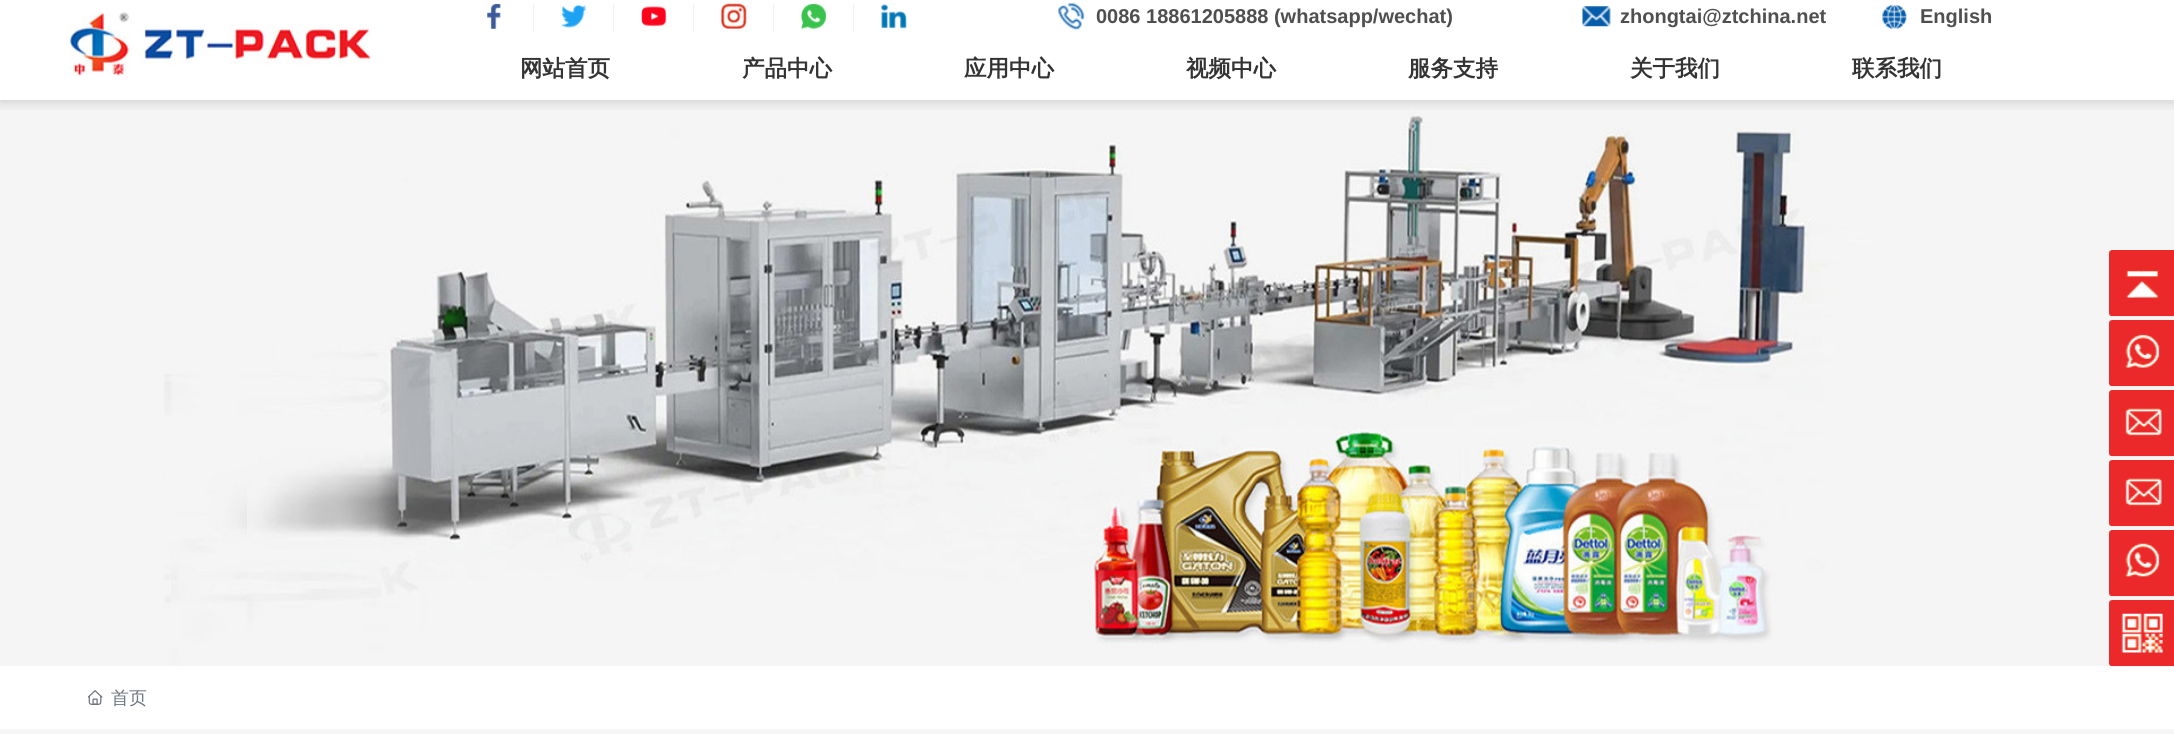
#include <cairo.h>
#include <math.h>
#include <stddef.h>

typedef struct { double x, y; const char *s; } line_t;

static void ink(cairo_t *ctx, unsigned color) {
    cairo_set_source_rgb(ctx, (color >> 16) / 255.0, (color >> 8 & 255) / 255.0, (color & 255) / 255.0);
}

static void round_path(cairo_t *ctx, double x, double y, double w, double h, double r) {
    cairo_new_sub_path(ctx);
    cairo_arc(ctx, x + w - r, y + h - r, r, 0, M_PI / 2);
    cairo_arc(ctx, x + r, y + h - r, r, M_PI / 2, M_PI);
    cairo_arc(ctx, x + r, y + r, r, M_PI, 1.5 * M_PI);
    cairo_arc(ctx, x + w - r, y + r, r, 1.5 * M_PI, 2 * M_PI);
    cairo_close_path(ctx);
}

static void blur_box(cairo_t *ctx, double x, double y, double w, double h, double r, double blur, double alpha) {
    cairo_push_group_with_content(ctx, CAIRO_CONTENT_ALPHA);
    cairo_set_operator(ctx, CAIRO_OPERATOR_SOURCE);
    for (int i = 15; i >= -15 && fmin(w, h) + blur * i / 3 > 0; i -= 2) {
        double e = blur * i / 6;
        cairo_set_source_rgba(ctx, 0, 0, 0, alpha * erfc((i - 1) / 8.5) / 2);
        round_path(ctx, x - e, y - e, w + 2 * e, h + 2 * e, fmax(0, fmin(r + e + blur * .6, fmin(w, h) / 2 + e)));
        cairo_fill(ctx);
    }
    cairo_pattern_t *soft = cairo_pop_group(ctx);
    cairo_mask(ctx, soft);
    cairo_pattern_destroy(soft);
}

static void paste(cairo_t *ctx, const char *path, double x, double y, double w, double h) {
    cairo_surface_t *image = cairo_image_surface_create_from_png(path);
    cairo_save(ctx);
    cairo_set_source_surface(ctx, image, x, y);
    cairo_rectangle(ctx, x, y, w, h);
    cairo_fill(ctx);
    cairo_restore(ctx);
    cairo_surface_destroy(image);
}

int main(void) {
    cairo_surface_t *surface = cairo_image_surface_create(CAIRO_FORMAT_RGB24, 2174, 734);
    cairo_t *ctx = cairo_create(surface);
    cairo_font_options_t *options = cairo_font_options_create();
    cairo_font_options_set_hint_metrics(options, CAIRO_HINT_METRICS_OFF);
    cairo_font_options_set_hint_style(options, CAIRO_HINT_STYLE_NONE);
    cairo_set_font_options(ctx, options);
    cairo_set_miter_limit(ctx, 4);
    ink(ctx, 0xFFFFFF);
    cairo_paint(ctx);
    paste(ctx, "media/11.png", 0, 100, 2174, 566);
    cairo_save(ctx);
    cairo_rectangle(ctx, 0, 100, 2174, 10);
    cairo_clip(ctx);
    ink(ctx, 0x000000);
    blur_box(ctx, 0, 3, 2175, 100, 0, 6, 0.15);
    cairo_restore(ctx);
    paste(ctx, "media/1.png", 69, 12, 302, 64);
    paste(ctx, "media/2.png", 487, 4, 14, 25);
    ink(ctx, 0xF1F1F1);
    cairo_rectangle(ctx, 533, 4, 1, 29);
    cairo_fill(ctx);
    paste(ctx, "media/3.png", 561, 4, 26, 24);
    cairo_rectangle(ctx, 613, 4, 1, 29);
    cairo_fill(ctx);
    paste(ctx, "media/4.png", 641, 6, 26, 21);
    cairo_rectangle(ctx, 693, 4, 1, 29);
    cairo_fill(ctx);
    paste(ctx, "media/5.png", 721, 3, 26, 26);
    cairo_rectangle(ctx, 773, 4, 1, 29);
    cairo_fill(ctx);
    paste(ctx, "media/6.png", 801, 4, 26, 25);
    cairo_rectangle(ctx, 853, 4, 1, 29);
    cairo_fill(ctx);
    paste(ctx, "media/7.png", 881, 4, 26, 25);
    paste(ctx, "media/8.png", 1058, 3, 27, 27);
    cairo_select_font_face(ctx, "Liberation Sans", CAIRO_FONT_SLANT_NORMAL, CAIRO_FONT_WEIGHT_BOLD);
    cairo_set_font_size(ctx, 20);
    ink(ctx, 0x4F4F4F);
    cairo_move_to(ctx, 1096, 23);
    cairo_show_text(ctx, "0086 18861205888 (whatsapp/wechat)");
    paste(ctx, "media/9.png", 1582, 6, 29, 21);
    cairo_move_to(ctx, 1620, 23);
    cairo_show_text(ctx, "zhongtai@ztchina.net");
    paste(ctx, "media/10.png", 1882, 4, 25, 25);
    cairo_move_to(ctx, 1920, 23);
    cairo_show_text(ctx, "English");
    cairo_select_font_face(ctx, "WenQuanYi Zen Hei", CAIRO_FONT_SLANT_NORMAL, CAIRO_FONT_WEIGHT_BOLD);
    cairo_set_font_size(ctx, 22.5);
    ink(ctx, 0x333333);
    {
        static const line_t items[] = {
            {520, 76, "网站首页"},
            {742, 76, "产品中心"},
            {964, 76, "应用中心"},
            {1186, 76, "视频中心"},
            {1408, 76, "服务支持"},
            {1630, 76, "关于我们"},
            {1852, 76, "联系我们"},
        };
        for (size_t i = 0; i < sizeof items / sizeof *items; i++) {
            cairo_move_to(ctx, items[i].x, items[i].y);
            cairo_show_text(ctx, items[i].s);
        }
    }
    paste(ctx, "media/12.png", 2109, 250, 65, 67);
    paste(ctx, "media/13.png", 2109, 320, 65, 67);
    paste(ctx, "media/14.png", 2109, 390, 65, 67);
    paste(ctx, "media/14.png", 2109, 460, 65, 67);
    paste(ctx, "media/15.png", 2109, 530, 65, 67);
    paste(ctx, "media/16.png", 2109, 600, 65, 67);
    paste(ctx, "media/17.png", 88, 690, 15, 15);
    cairo_select_font_face(ctx, "WenQuanYi Zen Hei Medium", CAIRO_FONT_SLANT_NORMAL, CAIRO_FONT_WEIGHT_NORMAL);
    cairo_set_font_size(ctx, 18);
    ink(ctx, 0x6C757D);
    cairo_move_to(ctx, 111, 704);
    cairo_show_text(ctx, "首页");
    ink(ctx, 0xF5F5F5);
    cairo_rectangle(ctx, 0, 729, 2174, 5);
    cairo_fill(ctx);
    cairo_surface_write_to_png(surface, "image.png");
    cairo_font_options_destroy(options);
    cairo_destroy(ctx);
    cairo_surface_destroy(surface);
    return 0;
}
